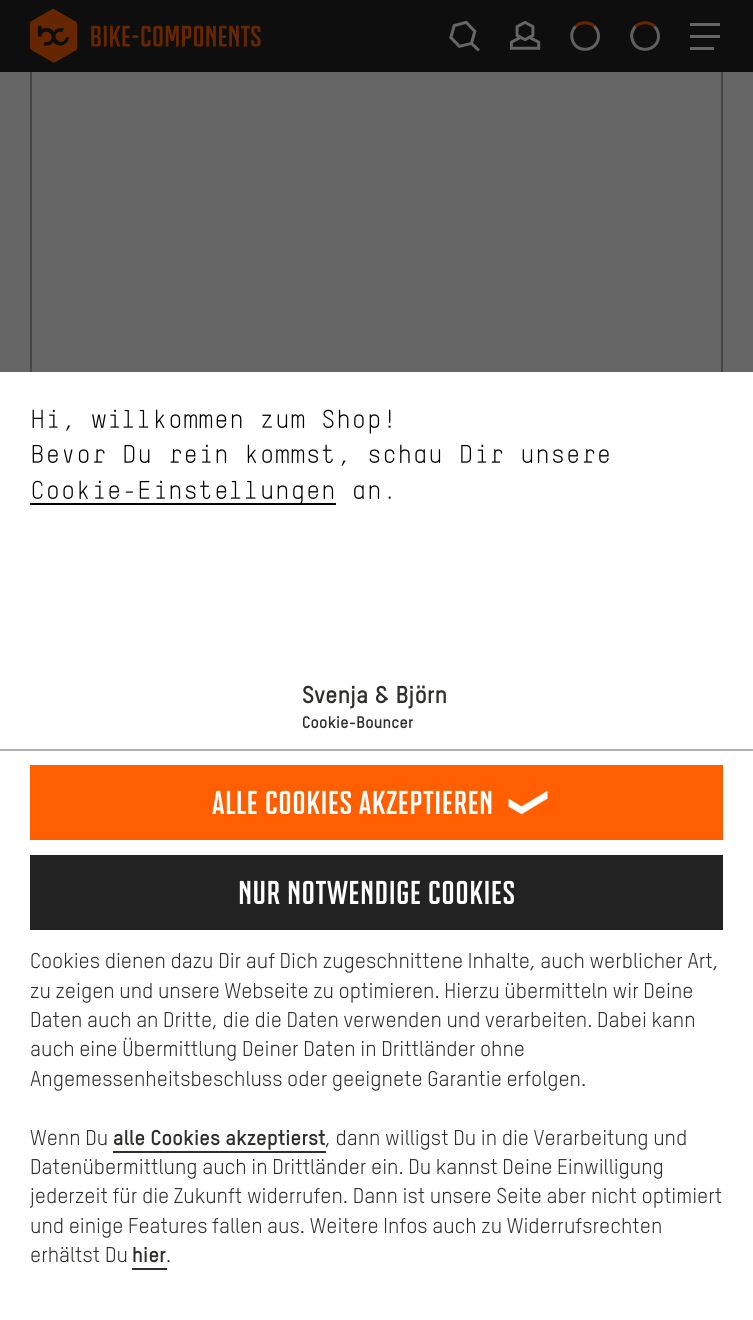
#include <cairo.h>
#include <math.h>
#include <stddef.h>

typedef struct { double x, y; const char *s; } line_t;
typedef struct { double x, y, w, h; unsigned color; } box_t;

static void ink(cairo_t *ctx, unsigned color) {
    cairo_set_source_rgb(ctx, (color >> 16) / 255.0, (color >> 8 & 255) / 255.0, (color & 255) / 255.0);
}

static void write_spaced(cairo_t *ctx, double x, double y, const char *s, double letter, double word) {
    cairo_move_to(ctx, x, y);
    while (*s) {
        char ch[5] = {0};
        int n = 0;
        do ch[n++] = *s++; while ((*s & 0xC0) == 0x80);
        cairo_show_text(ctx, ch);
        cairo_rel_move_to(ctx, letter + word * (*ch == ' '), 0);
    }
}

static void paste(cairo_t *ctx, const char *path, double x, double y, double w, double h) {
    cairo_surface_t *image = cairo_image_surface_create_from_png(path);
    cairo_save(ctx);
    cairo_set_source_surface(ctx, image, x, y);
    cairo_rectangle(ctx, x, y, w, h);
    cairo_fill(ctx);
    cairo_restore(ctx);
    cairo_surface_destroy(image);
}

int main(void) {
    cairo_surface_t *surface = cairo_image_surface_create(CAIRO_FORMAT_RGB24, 753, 1320);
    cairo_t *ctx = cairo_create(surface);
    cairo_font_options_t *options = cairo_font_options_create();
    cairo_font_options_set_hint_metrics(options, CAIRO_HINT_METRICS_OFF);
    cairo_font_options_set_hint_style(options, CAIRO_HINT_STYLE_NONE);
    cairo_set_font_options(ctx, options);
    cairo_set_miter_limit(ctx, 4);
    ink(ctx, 0x666666);
    cairo_paint(ctx);
    cairo_rectangle(ctx, 31, 1, 691, 564);
    ink(ctx, 0x464646);
    cairo_stroke(ctx);
    ink(ctx, 0x0E0E0E);
    cairo_rectangle(ctx, 0, 0, 753, 72);
    cairo_fill(ctx);
    paste(ctx, "media/1.png", 30, 9, 47, 53);
    paste(ctx, "media/2.png", 30, 9, 231, 54);
    paste(ctx, "media/3.png", 449, 20, 31, 32);
    paste(ctx, "media/4.png", 509, 20, 32, 30);
    cairo_new_path(ctx);
    cairo_move_to(ctx, 575.5, 26.5);
    cairo_curve_to(ctx, 580.5, 21.5, 589.5, 21.5, 594.5, 26.5);
    ink(ctx, 0x662600);
    cairo_set_line_width(ctx, 3);
    cairo_stroke(ctx);
    cairo_new_path(ctx);
    cairo_move_to(ctx, 594.5, 26.5);
    cairo_curve_to(ctx, 597, 29, 598.5, 32.5, 598.5, 36);
    cairo_curve_to(ctx, 598.5, 52, 575, 54.5, 572, 38.5);
    cairo_curve_to(ctx, 571, 34.5, 572.5, 29.5, 575.5, 26.5);
    ink(ctx, 0x606060);
    cairo_stroke(ctx);
    cairo_new_path(ctx);
    cairo_move_to(ctx, 635.5, 26.5);
    cairo_curve_to(ctx, 640.5, 21.5, 649.5, 21.5, 654.5, 26.5);
    ink(ctx, 0x662600);
    cairo_stroke(ctx);
    cairo_new_path(ctx);
    cairo_move_to(ctx, 654.5, 26.5);
    cairo_curve_to(ctx, 657, 29, 658.5, 32.5, 658.5, 36);
    cairo_curve_to(ctx, 658.5, 52, 635, 54.5, 632, 38.5);
    cairo_curve_to(ctx, 631, 34.5, 632.5, 29.5, 635.5, 26.5);
    ink(ctx, 0x606060);
    cairo_stroke(ctx);
    {
        static const box_t items[] = {
            {690, 23, 30, 3, 0x666666},
            {690, 35, 30, 3, 0x666666},
            {690, 47, 24, 3, 0x666666},
            {0, 372, 753, 948, 0xFFFFFF},
            {0, 749, 753, 2, 0xB0B0B0},
        };
        for (size_t i = 0; i < sizeof items / sizeof *items; i++) {
            ink(ctx, items[i].color);
            cairo_rectangle(ctx, items[i].x, items[i].y, items[i].w, items[i].h);
            cairo_fill(ctx);
        }
    }
    cairo_select_font_face(ctx, "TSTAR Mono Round", CAIRO_FONT_SLANT_NORMAL, CAIRO_FONT_WEIGHT_NORMAL);
    cairo_set_font_size(ctx, 25.5);
    ink(ctx, 0x000000);
    cairo_move_to(ctx, 30, 428);
    cairo_show_text(ctx, "Hi, willkommen zum Shop!");
    cairo_move_to(ctx, 30, 463);
    cairo_show_text(ctx, "Bevor Du rein kommst, schau Dir unsere");
    cairo_rectangle(ctx, 30, 503, 306, 2);
    cairo_fill(ctx);
    cairo_move_to(ctx, 30, 499);
    cairo_show_text(ctx, "Cookie-Einstellungen an.");
    cairo_select_font_face(ctx, "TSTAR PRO", CAIRO_FONT_SLANT_NORMAL, CAIRO_FONT_WEIGHT_BOLD);
    cairo_set_font_size(ctx, 24);
    ink(ctx, 0x2E2E2C);
    cairo_move_to(ctx, 302, 703);
    cairo_show_text(ctx, "Svenja & Björn");
    cairo_set_font_size(ctx, 16.5);
    cairo_move_to(ctx, 302, 728);
    cairo_show_text(ctx, "Cookie-Bouncer");
    ink(ctx, 0xFF5F00);
    cairo_rectangle(ctx, 30, 765, 693, 75);
    cairo_fill(ctx);
    cairo_select_font_face(ctx, "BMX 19", CAIRO_FONT_SLANT_NORMAL, CAIRO_FONT_WEIGHT_NORMAL);
    cairo_set_font_size(ctx, 33);
    ink(ctx, 0xFFFFFF);
    write_spaced(ctx, 212, 814, "Alle Cookies akzeptieren", 0.45, 0);
    paste(ctx, "media/5.png", 508, 790, 40, 25);
    ink(ctx, 0x222222);
    cairo_rectangle(ctx, 30, 855, 693, 75);
    cairo_fill(ctx);
    ink(ctx, 0xFFFFFF);
    write_spaced(ctx, 238, 904, "Nur Notwendige Cookies", 0.45, 0);
    cairo_select_font_face(ctx, "TSTAR PRO", CAIRO_FONT_SLANT_NORMAL, CAIRO_FONT_WEIGHT_NORMAL);
    cairo_set_font_size(ctx, 21);
    ink(ctx, 0x2E2E2C);
    {
        static const line_t items[] = {
            {30, 968, "Cookies dienen dazu Dir auf Dich zugeschnittene Inhalte, auch werblicher Art,"},
            {30, 998, "zu zeigen und unsere Webseite zu optimieren. Hierzu übermitteln wir Deine"},
            {30, 1027, "Daten auch an Dritte, die die Daten verwenden und verarbeiten. Dabei kann"},
            {30, 1056, "auch eine Übermittlung Deiner Daten in Drittländer ohne"},
            {30, 1086, "Angemessenheitsbeschluss oder geeignete Garantie erfolgen."},
            {30, 1145, "Wenn Du"},
        };
        for (size_t i = 0; i < sizeof items / sizeof *items; i++) {
            cairo_move_to(ctx, items[i].x, items[i].y);
            cairo_show_text(ctx, items[i].s);
        }
    }
    cairo_select_font_face(ctx, "TSTAR PRO", CAIRO_FONT_SLANT_NORMAL, CAIRO_FONT_WEIGHT_BOLD);
    cairo_move_to(ctx, 113, 1145);
    cairo_show_text(ctx, "alle Cookies akzeptierst");
    cairo_rectangle(ctx, 113, 1151, 213, 2);
    cairo_fill(ctx);
    cairo_select_font_face(ctx, "TSTAR PRO", CAIRO_FONT_SLANT_NORMAL, CAIRO_FONT_WEIGHT_NORMAL);
    {
        static const line_t items[] = {
            {325, 1145, ", dann willigst Du in die Verarbeitung und"},
            {30, 1174, "Datenübermittlung auch in Drittländer ein. Du kannst Deine Einwilligung"},
            {30, 1203, "jederzeit für die Zukunft widerrufen. Dann ist unsere Seite aber nicht optimiert"},
            {30, 1233, "und einige Features fallen aus. Weitere Infos auch zu Widerrufsrechten"},
            {30, 1262, "erhältst Du"},
        };
        for (size_t i = 0; i < sizeof items / sizeof *items; i++) {
            cairo_move_to(ctx, items[i].x, items[i].y);
            cairo_show_text(ctx, items[i].s);
        }
    }
    cairo_select_font_face(ctx, "TSTAR PRO", CAIRO_FONT_SLANT_NORMAL, CAIRO_FONT_WEIGHT_BOLD);
    cairo_move_to(ctx, 132, 1262);
    cairo_show_text(ctx, "hier");
    cairo_rectangle(ctx, 132, 1268, 35, 2);
    cairo_fill(ctx);
    cairo_select_font_face(ctx, "TSTAR PRO", CAIRO_FONT_SLANT_NORMAL, CAIRO_FONT_WEIGHT_NORMAL);
    cairo_move_to(ctx, 166, 1262);
    cairo_show_text(ctx, ".");
    cairo_surface_write_to_png(surface, "image.png");
    cairo_font_options_destroy(options);
    cairo_destroy(ctx);
    cairo_surface_destroy(surface);
    return 0;
}
